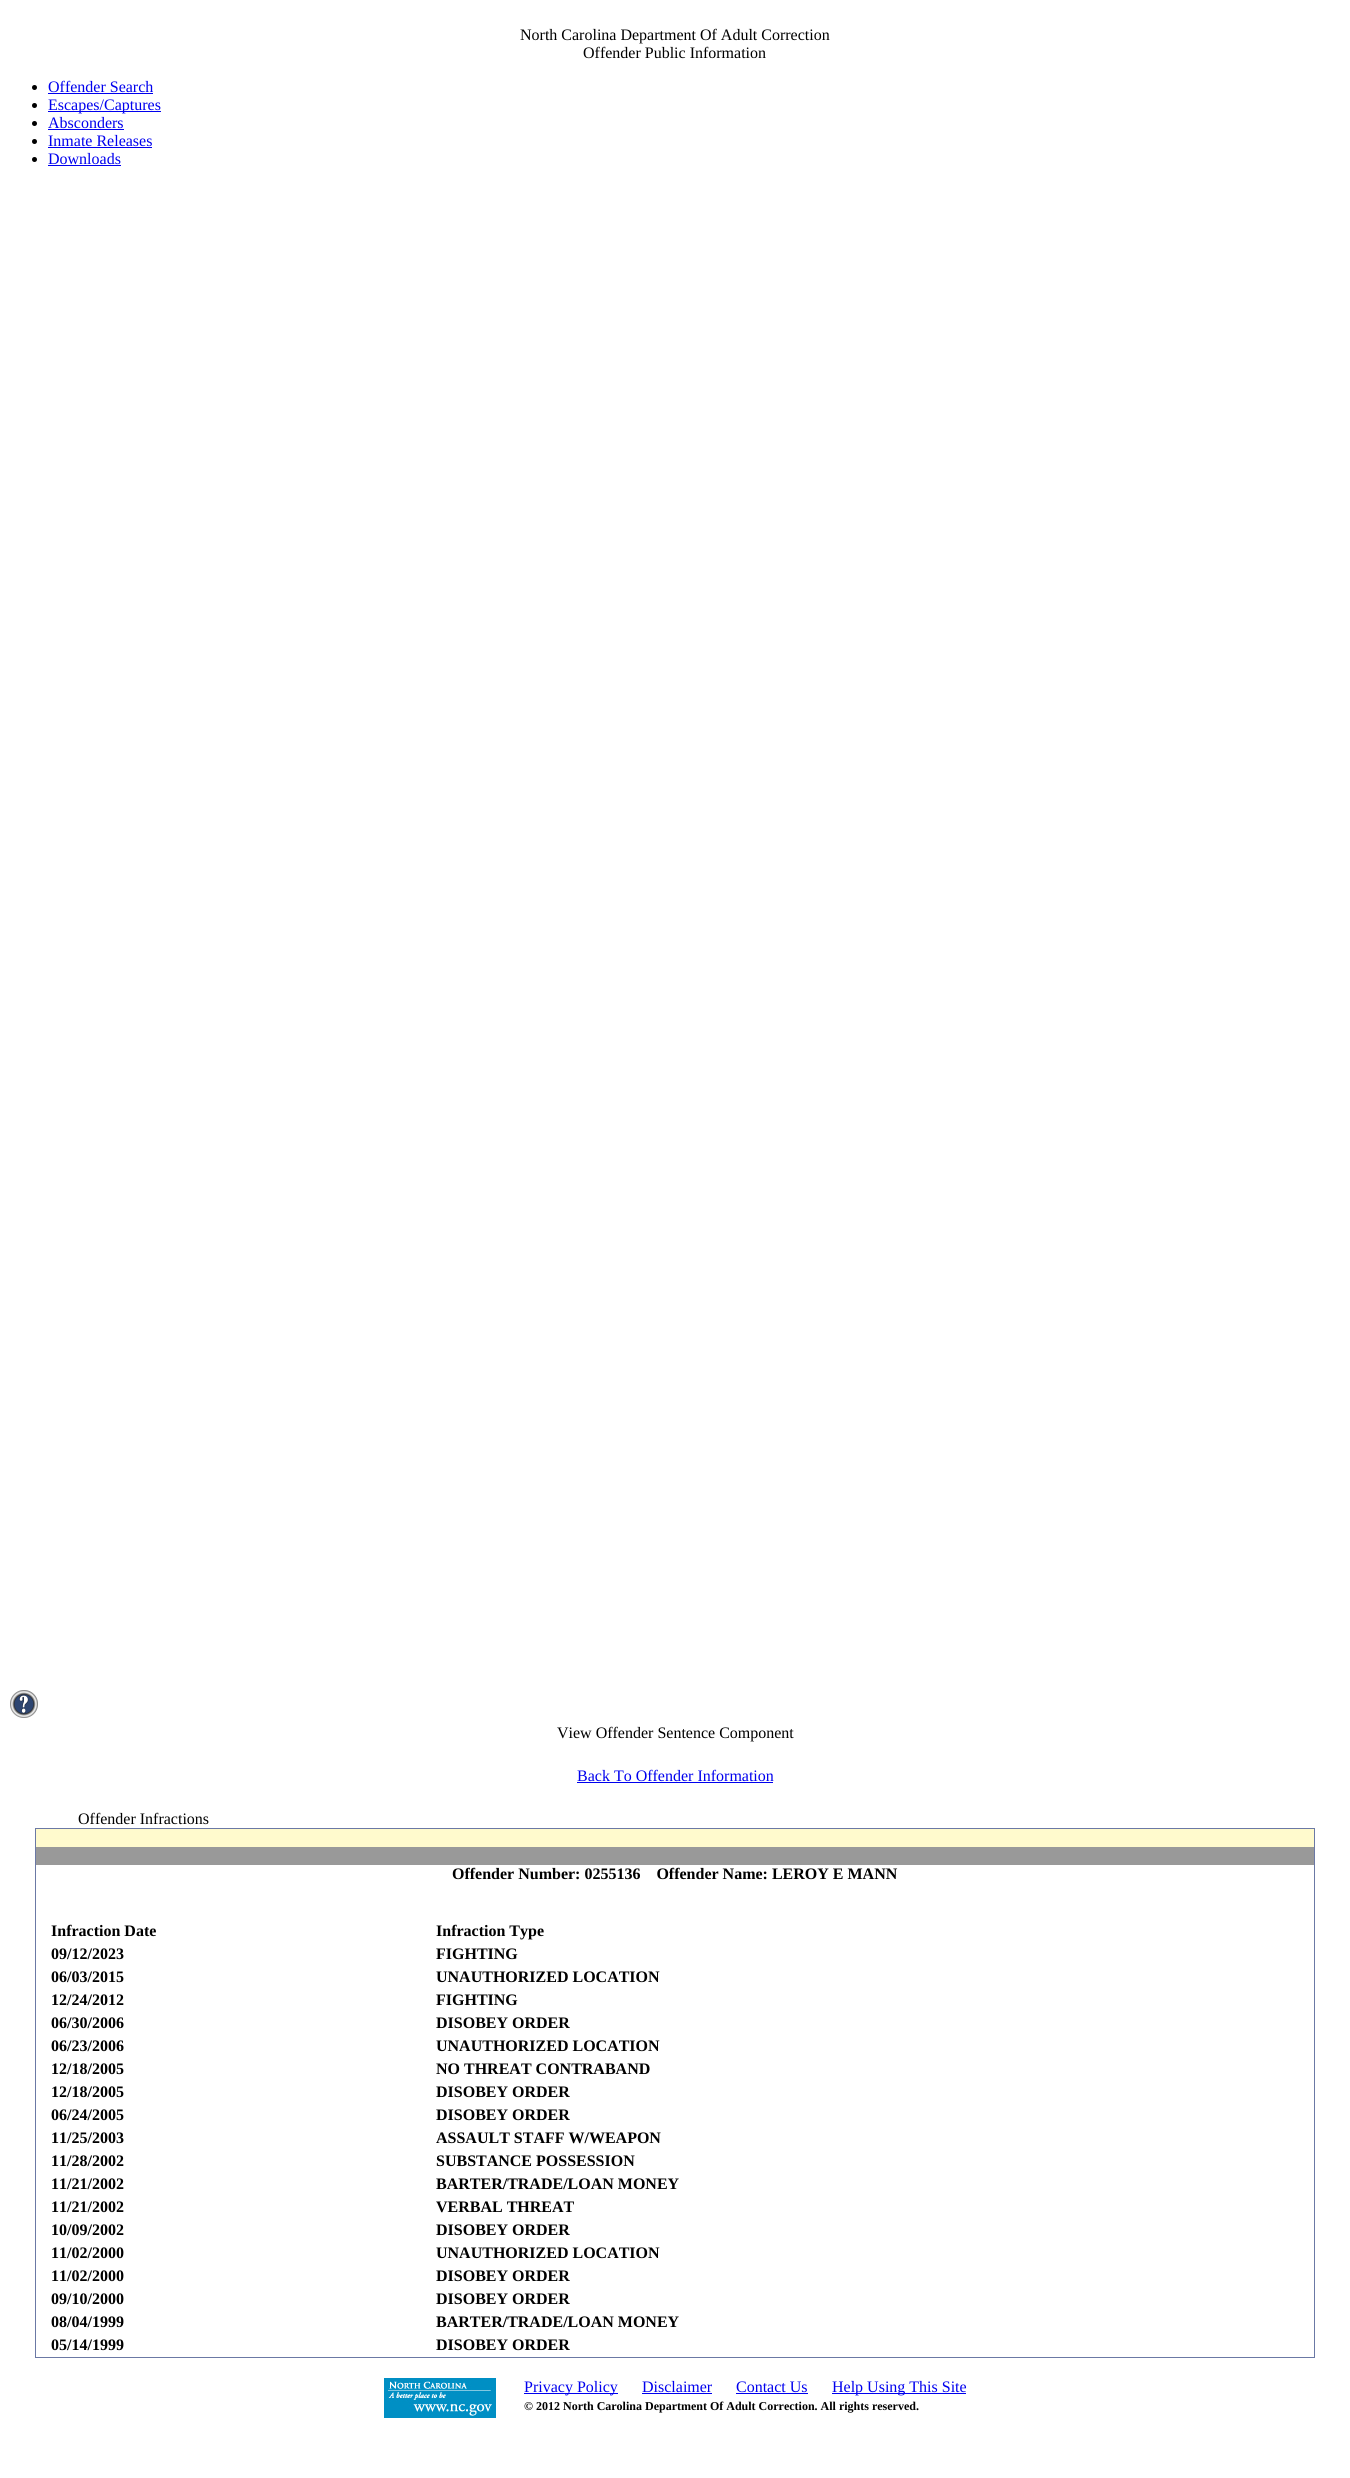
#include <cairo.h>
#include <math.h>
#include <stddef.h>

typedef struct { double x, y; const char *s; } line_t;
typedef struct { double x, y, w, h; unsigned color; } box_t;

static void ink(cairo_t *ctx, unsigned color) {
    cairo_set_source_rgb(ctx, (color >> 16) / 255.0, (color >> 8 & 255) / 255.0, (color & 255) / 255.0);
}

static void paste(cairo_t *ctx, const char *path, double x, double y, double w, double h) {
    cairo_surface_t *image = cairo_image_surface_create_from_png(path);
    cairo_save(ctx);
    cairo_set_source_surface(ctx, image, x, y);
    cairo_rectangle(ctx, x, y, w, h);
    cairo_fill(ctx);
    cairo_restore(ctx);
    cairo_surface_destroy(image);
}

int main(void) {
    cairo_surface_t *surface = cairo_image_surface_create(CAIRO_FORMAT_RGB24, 1350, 2478);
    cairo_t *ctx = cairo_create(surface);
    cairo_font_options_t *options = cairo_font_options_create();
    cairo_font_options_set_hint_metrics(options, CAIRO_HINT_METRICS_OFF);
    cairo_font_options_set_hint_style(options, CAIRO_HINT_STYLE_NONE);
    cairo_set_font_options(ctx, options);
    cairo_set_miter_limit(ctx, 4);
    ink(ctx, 0xFFFFFF);
    cairo_paint(ctx);
    cairo_select_font_face(ctx, "Liberation Serif", CAIRO_FONT_SLANT_NORMAL, CAIRO_FONT_WEIGHT_NORMAL);
    cairo_set_font_size(ctx, 16);
    ink(ctx, 0x000000);
    cairo_move_to(ctx, 520, 40);
    cairo_show_text(ctx, "North Carolina Department Of Adult Correction");
    cairo_move_to(ctx, 583, 58);
    cairo_show_text(ctx, "Offender Public Information");
    cairo_new_path(ctx);
    cairo_arc(ctx, 34.5, 87.5, 2.5, 0, 2 * M_PI);
    cairo_fill(ctx);
    ink(ctx, 0x0000EE);
    cairo_move_to(ctx, 48, 92);
    cairo_show_text(ctx, "Offender Search");
    cairo_rectangle(ctx, 48, 93, 105, 1);
    cairo_fill(ctx);
    ink(ctx, 0x000000);
    cairo_arc(ctx, 34.5, 105.5, 2.5, 0, 2 * M_PI);
    cairo_fill(ctx);
    ink(ctx, 0x0000EE);
    cairo_rectangle(ctx, 48, 111, 113, 1);
    cairo_fill(ctx);
    cairo_move_to(ctx, 48, 110);
    cairo_show_text(ctx, "Escapes/Captures");
    ink(ctx, 0x000000);
    cairo_new_path(ctx);
    cairo_arc(ctx, 34.5, 123.5, 2.5, 0, 2 * M_PI);
    cairo_fill(ctx);
    ink(ctx, 0x0000EE);
    cairo_move_to(ctx, 48, 128);
    cairo_show_text(ctx, "Absconders");
    cairo_rectangle(ctx, 48, 129, 76, 1);
    cairo_fill(ctx);
    ink(ctx, 0x000000);
    cairo_arc(ctx, 34.5, 141.5, 2.5, 0, 2 * M_PI);
    cairo_fill(ctx);
    ink(ctx, 0x0000EE);
    cairo_move_to(ctx, 48, 146);
    cairo_show_text(ctx, "Inmate Releases");
    cairo_rectangle(ctx, 48, 147, 104, 1);
    cairo_fill(ctx);
    ink(ctx, 0x000000);
    cairo_arc(ctx, 34.5, 159.5, 2.5, 0, 2 * M_PI);
    cairo_fill(ctx);
    ink(ctx, 0x0000EE);
    cairo_move_to(ctx, 48, 164);
    cairo_show_text(ctx, "Downloads");
    cairo_rectangle(ctx, 48, 165, 73, 1);
    cairo_fill(ctx);
    paste(ctx, "media/1.png", 10, 1690, 28, 28);
    ink(ctx, 0x000000);
    cairo_move_to(ctx, 557, 1738);
    cairo_show_text(ctx, "View Offender Sentence Component");
    ink(ctx, 0x0000EE);
    cairo_move_to(ctx, 577, 1781);
    cairo_show_text(ctx, "Back To Offender Information");
    cairo_rectangle(ctx, 577, 1782, 196, 1);
    cairo_fill(ctx);
    ink(ctx, 0x000000);
    cairo_move_to(ctx, 78, 1824);
    cairo_show_text(ctx, "Offender Infractions");
    {
        static const box_t items[] = {
            {35, 1828, 1280, 530, 0x6B79A5},
            {36, 1865, 1278, 492, 0xFFFFFF},
            {36, 1829, 1278, 18, 0xFFFACD},
            {36, 1847, 1278, 18, 0x999999},
        };
        for (size_t i = 0; i < sizeof items / sizeof *items; i++) {
            ink(ctx, items[i].color);
            cairo_rectangle(ctx, items[i].x, items[i].y, items[i].w, items[i].h);
            cairo_fill(ctx);
        }
    }
    cairo_select_font_face(ctx, "Liberation Serif", CAIRO_FONT_SLANT_NORMAL, CAIRO_FONT_WEIGHT_BOLD);
    ink(ctx, 0x000000);
    {
        static const line_t items[] = {
            {452, 1879, "Offender Number: 0255136    Offender Name: LEROY E MANN"},
            {51, 1936, "Infraction Date"},
            {436, 1936, "Infraction Type"},
            {51, 1959, "09/12/2023"},
            {436, 1959, "FIGHTING"},
            {51, 1982, "06/03/2015"},
            {436, 1982, "UNAUTHORIZED LOCATION"},
            {51, 2005, "12/24/2012"},
            {436, 2005, "FIGHTING"},
            {51, 2028, "06/30/2006"},
            {436, 2028, "DISOBEY ORDER"},
            {51, 2051, "06/23/2006"},
            {436, 2051, "UNAUTHORIZED LOCATION"},
            {51, 2074, "12/18/2005"},
            {436, 2074, "NO THREAT CONTRABAND"},
            {51, 2097, "12/18/2005"},
            {436, 2097, "DISOBEY ORDER"},
            {51, 2120, "06/24/2005"},
            {436, 2120, "DISOBEY ORDER"},
            {51, 2143, "11/25/2003"},
            {436, 2143, "ASSAULT STAFF W/WEAPON"},
            {51, 2166, "11/28/2002"},
            {436, 2166, "SUBSTANCE POSSESSION"},
            {51, 2189, "11/21/2002"},
            {436, 2189, "BARTER/TRADE/LOAN MONEY"},
            {51, 2212, "11/21/2002"},
            {436, 2212, "VERBAL THREAT"},
            {51, 2235, "10/09/2002"},
            {436, 2235, "DISOBEY ORDER"},
            {51, 2258, "11/02/2000"},
            {436, 2258, "UNAUTHORIZED LOCATION"},
            {51, 2281, "11/02/2000"},
            {436, 2281, "DISOBEY ORDER"},
            {51, 2304, "09/10/2000"},
            {436, 2304, "DISOBEY ORDER"},
            {51, 2327, "08/04/1999"},
            {436, 2327, "BARTER/TRADE/LOAN MONEY"},
            {51, 2350, "05/14/1999"},
            {436, 2350, "DISOBEY ORDER"},
        };
        for (size_t i = 0; i < sizeof items / sizeof *items; i++) {
            cairo_move_to(ctx, items[i].x, items[i].y);
            cairo_show_text(ctx, items[i].s);
        }
    }
    paste(ctx, "media/2.png", 384, 2378, 112, 40);
    ink(ctx, 0x0000EE);
    cairo_rectangle(ctx, 524, 2393, 94, 1);
    cairo_fill(ctx);
    cairo_select_font_face(ctx, "Liberation Serif", CAIRO_FONT_SLANT_NORMAL, CAIRO_FONT_WEIGHT_NORMAL);
    cairo_move_to(ctx, 524, 2392);
    cairo_show_text(ctx, "Privacy Policy");
    cairo_move_to(ctx, 642, 2392);
    cairo_show_text(ctx, "Disclaimer");
    cairo_rectangle(ctx, 642, 2393, 70, 1);
    cairo_fill(ctx);
    cairo_move_to(ctx, 736, 2392);
    cairo_show_text(ctx, "Contact Us");
    cairo_rectangle(ctx, 736, 2393, 72, 1);
    cairo_fill(ctx);
    cairo_rectangle(ctx, 832, 2393, 134, 1);
    cairo_fill(ctx);
    cairo_move_to(ctx, 832, 2392);
    cairo_show_text(ctx, "Help Using This Site");
    cairo_select_font_face(ctx, "Liberation Serif", CAIRO_FONT_SLANT_NORMAL, CAIRO_FONT_WEIGHT_BOLD);
    cairo_set_font_size(ctx, 12);
    ink(ctx, 0x000000);
    cairo_move_to(ctx, 524, 2410);
    cairo_show_text(ctx, "© 2012 North Carolina Department Of Adult Correction. All rights reserved.");
    cairo_surface_write_to_png(surface, "image.png");
    cairo_font_options_destroy(options);
    cairo_destroy(ctx);
    cairo_surface_destroy(surface);
    return 0;
}
